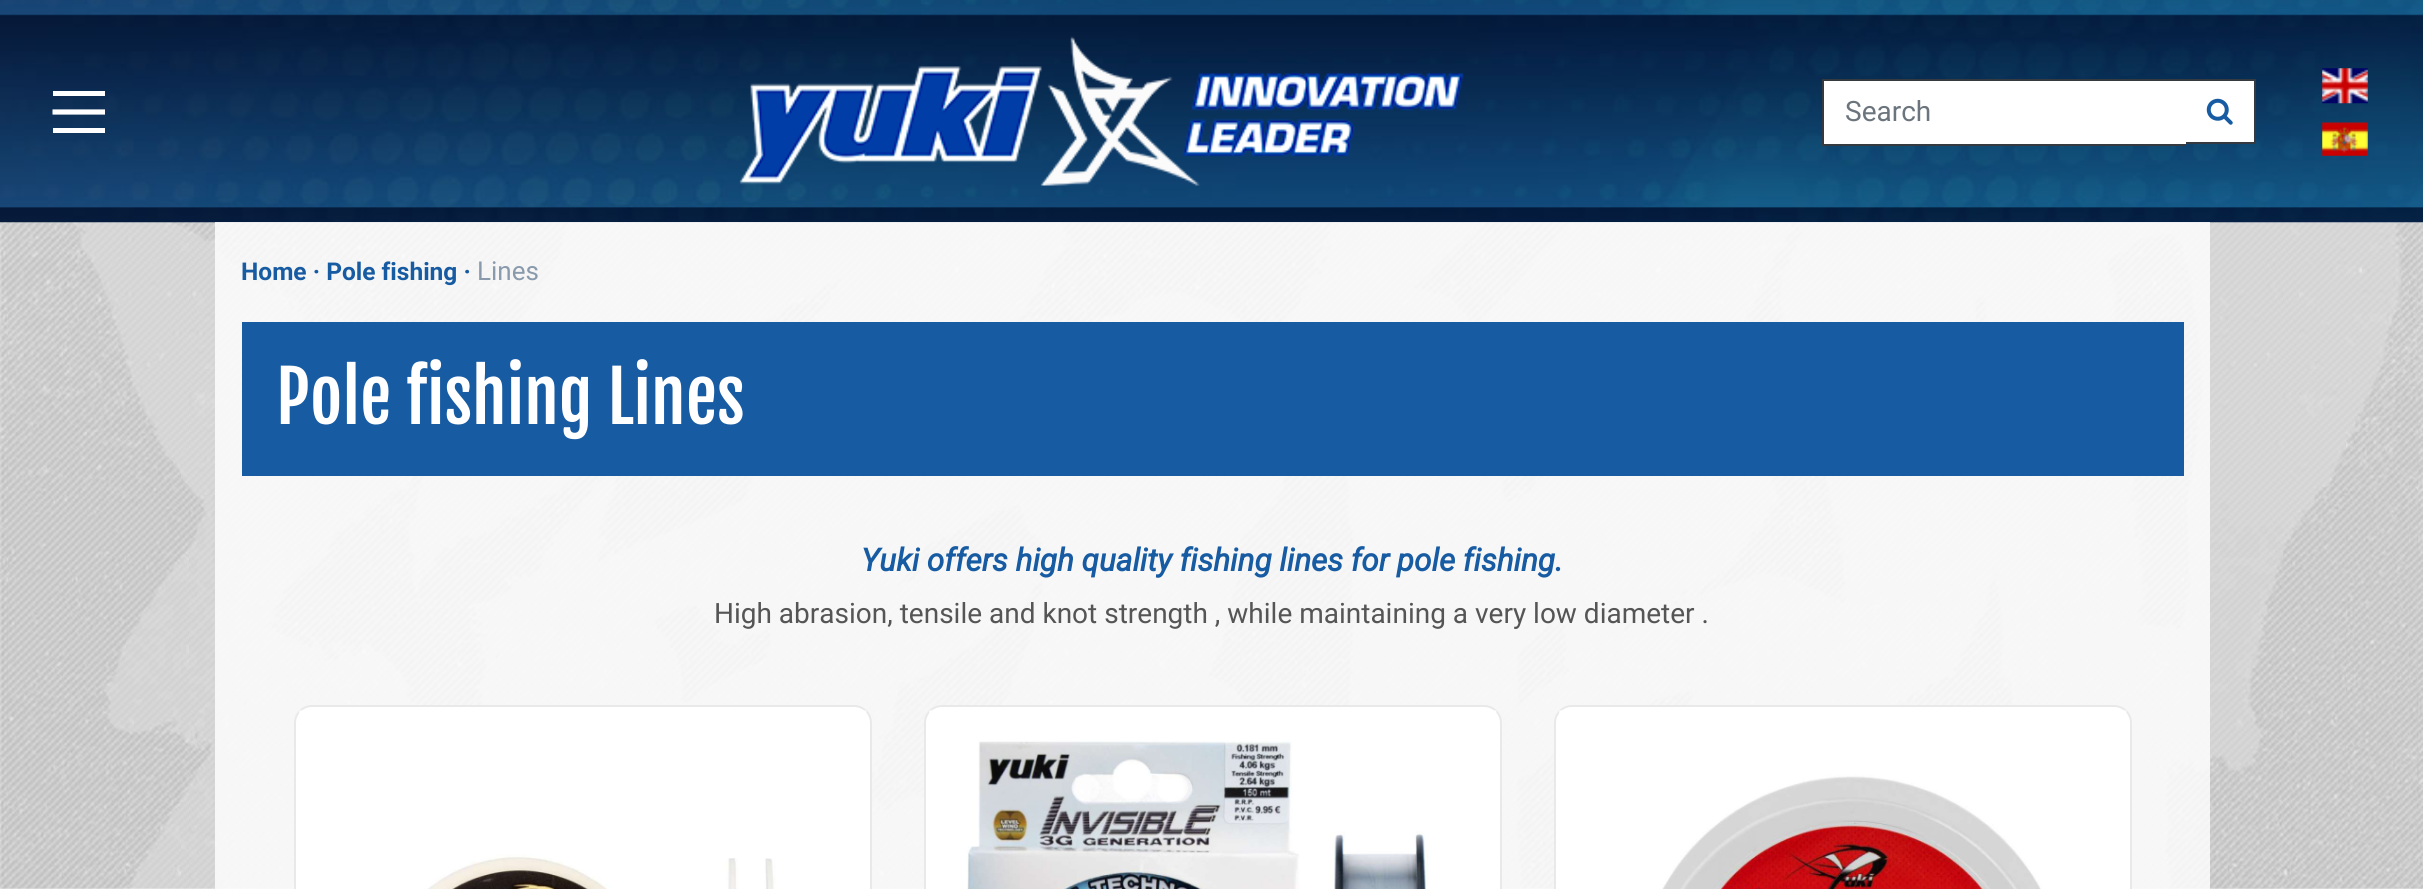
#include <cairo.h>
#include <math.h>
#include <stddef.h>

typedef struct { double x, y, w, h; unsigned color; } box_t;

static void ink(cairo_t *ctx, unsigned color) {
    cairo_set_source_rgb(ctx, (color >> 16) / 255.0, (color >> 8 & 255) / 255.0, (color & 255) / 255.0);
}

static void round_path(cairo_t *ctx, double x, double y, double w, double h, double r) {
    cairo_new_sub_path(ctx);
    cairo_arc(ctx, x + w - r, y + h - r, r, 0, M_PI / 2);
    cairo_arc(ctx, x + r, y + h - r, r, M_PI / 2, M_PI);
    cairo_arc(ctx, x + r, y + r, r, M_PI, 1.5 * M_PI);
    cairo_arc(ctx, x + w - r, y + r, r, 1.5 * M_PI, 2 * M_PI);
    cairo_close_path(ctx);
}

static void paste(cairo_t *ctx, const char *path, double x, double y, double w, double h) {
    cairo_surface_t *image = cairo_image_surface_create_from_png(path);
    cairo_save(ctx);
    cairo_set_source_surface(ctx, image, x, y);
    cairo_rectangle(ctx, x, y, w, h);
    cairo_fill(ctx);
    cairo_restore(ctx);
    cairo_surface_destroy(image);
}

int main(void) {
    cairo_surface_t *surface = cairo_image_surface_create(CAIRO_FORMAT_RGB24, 2423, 889);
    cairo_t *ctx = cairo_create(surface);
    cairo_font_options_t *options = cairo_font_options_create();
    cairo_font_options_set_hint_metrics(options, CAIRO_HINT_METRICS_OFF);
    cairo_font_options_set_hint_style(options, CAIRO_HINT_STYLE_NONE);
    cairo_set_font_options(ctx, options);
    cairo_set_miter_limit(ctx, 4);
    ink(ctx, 0xFFFFFF);
    cairo_paint(ctx);
    paste(ctx, "media/1.png", 0, 222, 2423, 667);
    paste(ctx, "media/2.png", 0, 0, 2423, 223);
    ink(ctx, 0xFFFFFF);
    cairo_rectangle(ctx, 53, 91, 52, 5);
    cairo_fill(ctx);
    cairo_new_path(ctx);
    cairo_move_to(ctx, 52.5, 112);
    cairo_line_to(ctx, 105, 112);
    cairo_set_line_width(ctx, 5.2);
    cairo_stroke(ctx);
    cairo_rectangle(ctx, 53, 128, 52, 5);
    cairo_fill(ctx);
    paste(ctx, "media/3.png", 739, 36, 725, 150);
    {
        static const box_t items[] = {
            {1824, 81, 362, 63, 0xFFFFFF},
            {1822, 79, 434, 2, 0x343A40},
            {1822, 144, 364, 2, 0x343A40},
            {1822, 79, 2, 66, 0x343A40},
        };
        for (size_t i = 0; i < sizeof items / sizeof *items; i++) {
            ink(ctx, items[i].color);
            cairo_rectangle(ctx, items[i].x, items[i].y, items[i].w, items[i].h);
            cairo_fill(ctx);
        }
    }
    cairo_select_font_face(ctx, "Roboto", CAIRO_FONT_SLANT_NORMAL, CAIRO_FONT_WEIGHT_NORMAL);
    cairo_set_font_size(ctx, 28);
    ink(ctx, 0x6C757D);
    cairo_move_to(ctx, 1845, 121);
    cairo_show_text(ctx, "Search");
    {
        static const box_t items[] = {
            {2186, 81, 68, 61, 0xFFFFFF},
            {2254, 79, 2, 65, 0x343A40},
            {2186, 142, 70, 2, 0x343A40},
        };
        for (size_t i = 0; i < sizeof items / sizeof *items; i++) {
            ink(ctx, items[i].color);
            cairo_rectangle(ctx, items[i].x, items[i].y, items[i].w, items[i].h);
            cairo_fill(ctx);
        }
    }
    paste(ctx, "media/4.png", 2206, 98, 27, 27);
    paste(ctx, "media/5.png", 2322, 68, 46, 36);
    paste(ctx, "media/6.png", 2322, 122, 46, 34);
    cairo_set_source_rgba(ctx, 1, 1, 1, 0.81);
    cairo_rectangle(ctx, 215, 222, 1995, 667);
    cairo_fill(ctx);
    cairo_select_font_face(ctx, "Roboto", CAIRO_FONT_SLANT_NORMAL, CAIRO_FONT_WEIGHT_BOLD);
    cairo_set_font_size(ctx, 24.5);
    ink(ctx, 0x175BA2);
    cairo_move_to(ctx, 241, 280);
    cairo_show_text(ctx, "Home · Pole fishing ·");
    cairo_select_font_face(ctx, "Roboto", CAIRO_FONT_SLANT_NORMAL, CAIRO_FONT_WEIGHT_NORMAL);
    cairo_set_font_size(ctx, 26);
    ink(ctx, 0x889AAC);
    cairo_move_to(ctx, 477, 280);
    cairo_show_text(ctx, "Lines");
    ink(ctx, 0x175BA2);
    cairo_rectangle(ctx, 242, 322, 1942, 154);
    cairo_fill(ctx);
    cairo_select_font_face(ctx, "Fjalla One", CAIRO_FONT_SLANT_NORMAL, CAIRO_FONT_WEIGHT_NORMAL);
    cairo_set_font_size(ctx, 70);
    ink(ctx, 0xFFFFFF);
    cairo_move_to(ctx, 276, 424);
    cairo_show_text(ctx, "Pole fishing Lines");
    cairo_select_font_face(ctx, "Roboto", CAIRO_FONT_SLANT_ITALIC, CAIRO_FONT_WEIGHT_BOLD);
    cairo_set_font_size(ctx, 31.5);
    ink(ctx, 0x175BA2);
    cairo_move_to(ctx, 861, 571);
    cairo_show_text(ctx, "Yuki offers high quality fishing lines for pole fishing.");
    cairo_select_font_face(ctx, "Roboto", CAIRO_FONT_SLANT_NORMAL, CAIRO_FONT_WEIGHT_NORMAL);
    cairo_set_font_size(ctx, 28);
    ink(ctx, 0x555555);
    cairo_move_to(ctx, 714, 623);
    cairo_show_text(ctx, "High abrasion, tensile and knot strength , while maintaining a very low diameter .");
    ink(ctx, 0xFFFFFF);
    round_path(ctx, 295, 706, 576, 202, 17);
    cairo_fill_preserve(ctx);
    ink(ctx, 0xE9E9E9);
    cairo_set_line_width(ctx, 2);
    cairo_stroke(ctx);
    paste(ctx, "media/7.png", 299, 710, 568, 179);
    ink(ctx, 0xFFFFFF);
    round_path(ctx, 925, 706, 576, 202, 17);
    cairo_fill_preserve(ctx);
    ink(ctx, 0xE9E9E9);
    cairo_stroke(ctx);
    paste(ctx, "media/8.png", 929, 710, 568, 179);
    ink(ctx, 0xFFFFFF);
    round_path(ctx, 1555, 706, 576, 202, 17);
    cairo_fill_preserve(ctx);
    ink(ctx, 0xE9E9E9);
    cairo_stroke(ctx);
    paste(ctx, "media/9.png", 1559, 710, 568, 179);
    cairo_surface_write_to_png(surface, "image.png");
    cairo_font_options_destroy(options);
    cairo_destroy(ctx);
    cairo_surface_destroy(surface);
    return 0;
}
